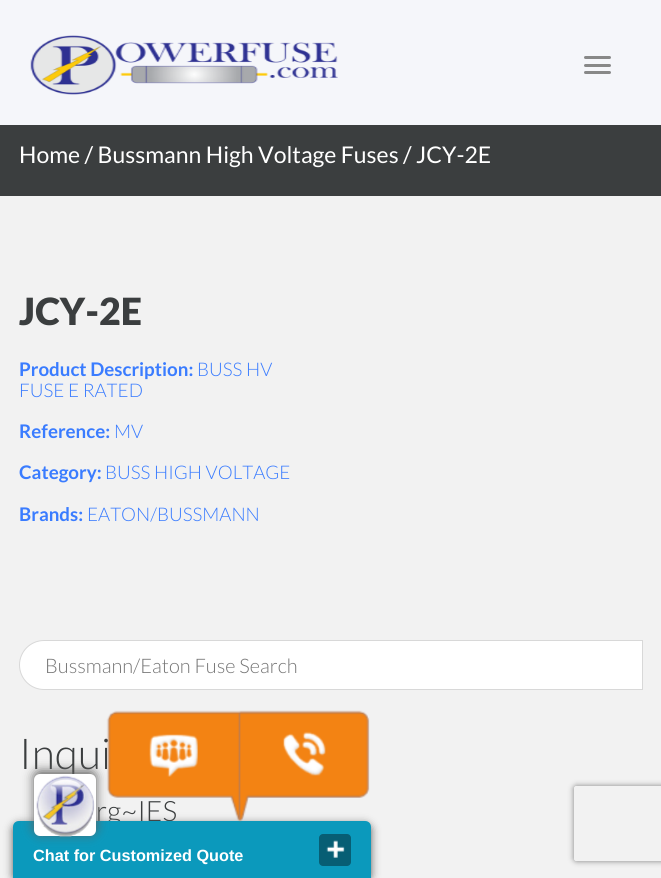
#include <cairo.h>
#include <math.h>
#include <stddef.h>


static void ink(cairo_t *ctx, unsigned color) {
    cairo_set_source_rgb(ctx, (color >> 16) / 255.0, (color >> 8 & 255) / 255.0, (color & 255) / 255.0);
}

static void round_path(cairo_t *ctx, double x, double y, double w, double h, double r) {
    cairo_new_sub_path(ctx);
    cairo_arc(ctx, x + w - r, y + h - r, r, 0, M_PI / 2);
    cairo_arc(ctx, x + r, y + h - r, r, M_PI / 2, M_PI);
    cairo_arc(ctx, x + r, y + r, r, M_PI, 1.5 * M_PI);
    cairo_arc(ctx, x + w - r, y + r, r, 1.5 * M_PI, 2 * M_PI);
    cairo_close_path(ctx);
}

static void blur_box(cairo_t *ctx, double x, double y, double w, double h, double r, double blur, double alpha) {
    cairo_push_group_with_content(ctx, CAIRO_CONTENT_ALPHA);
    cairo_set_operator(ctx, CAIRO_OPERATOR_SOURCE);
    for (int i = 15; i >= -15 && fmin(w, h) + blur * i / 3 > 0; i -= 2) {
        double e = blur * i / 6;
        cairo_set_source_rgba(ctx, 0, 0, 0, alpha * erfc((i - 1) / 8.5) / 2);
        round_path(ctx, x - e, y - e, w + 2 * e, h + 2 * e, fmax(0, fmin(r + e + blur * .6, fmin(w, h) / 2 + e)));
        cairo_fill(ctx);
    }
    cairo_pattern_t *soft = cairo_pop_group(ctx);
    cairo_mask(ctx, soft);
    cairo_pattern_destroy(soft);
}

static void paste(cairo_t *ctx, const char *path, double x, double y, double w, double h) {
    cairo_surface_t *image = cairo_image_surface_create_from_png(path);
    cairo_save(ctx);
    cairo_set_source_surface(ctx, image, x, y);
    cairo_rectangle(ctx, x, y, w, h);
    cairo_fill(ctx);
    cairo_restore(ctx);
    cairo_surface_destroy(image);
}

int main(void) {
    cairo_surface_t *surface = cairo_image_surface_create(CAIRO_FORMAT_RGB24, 661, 878);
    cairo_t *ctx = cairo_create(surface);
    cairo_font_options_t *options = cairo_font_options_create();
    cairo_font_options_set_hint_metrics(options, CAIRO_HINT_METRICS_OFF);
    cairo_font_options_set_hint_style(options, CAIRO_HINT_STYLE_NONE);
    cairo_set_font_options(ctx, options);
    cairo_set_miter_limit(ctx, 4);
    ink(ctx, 0xF2F2F2);
    cairo_paint(ctx);
    ink(ctx, 0xF5F6FA);
    cairo_rectangle(ctx, 0, 0, 661, 125);
    cairo_fill(ctx);
    paste(ctx, "media/1.png", 30, 35, 308, 60);
    ink(ctx, 0x888888);
    round_path(ctx, 584, 56, 27, 3, 1.5);
    cairo_fill(ctx);
    round_path(ctx, 584, 64, 27, 3, 1.5);
    cairo_fill(ctx);
    round_path(ctx, 584, 71, 27, 3, 1.5);
    cairo_fill(ctx);
    ink(ctx, 0x3B3E3F);
    cairo_rectangle(ctx, 0, 125, 661, 71);
    cairo_fill(ctx);
    cairo_select_font_face(ctx, "Lato", CAIRO_FONT_SLANT_NORMAL, CAIRO_FONT_WEIGHT_NORMAL);
    cairo_set_font_size(ctx, 23);
    ink(ctx, 0xFFFFFF);
    cairo_move_to(ctx, 19, 163);
    cairo_show_text(ctx, "Home / Bussmann High Voltage Fuses / JCY-2E");
    cairo_select_font_face(ctx, "Lato Black", CAIRO_FONT_SLANT_NORMAL, CAIRO_FONT_WEIGHT_NORMAL);
    cairo_set_font_size(ctx, 37.5);
    ink(ctx, 0x3B3E3F);
    cairo_move_to(ctx, 19, 325);
    cairo_show_text(ctx, "JCY-2E");
    cairo_select_font_face(ctx, "Lato", CAIRO_FONT_SLANT_NORMAL, CAIRO_FONT_WEIGHT_BOLD);
    cairo_set_font_size(ctx, 18.75);
    ink(ctx, 0x3A7CFF);
    cairo_move_to(ctx, 19, 376);
    cairo_show_text(ctx, "Product Description:");
    cairo_select_font_face(ctx, "Lato Light", CAIRO_FONT_SLANT_NORMAL, CAIRO_FONT_WEIGHT_NORMAL);
    cairo_move_to(ctx, 197, 376);
    cairo_show_text(ctx, "BUSS HV");
    cairo_move_to(ctx, 19, 397);
    cairo_show_text(ctx, "FUSE E RATED");
    cairo_select_font_face(ctx, "Lato", CAIRO_FONT_SLANT_NORMAL, CAIRO_FONT_WEIGHT_BOLD);
    cairo_move_to(ctx, 19, 438);
    cairo_show_text(ctx, "Reference:");
    cairo_select_font_face(ctx, "Lato Light", CAIRO_FONT_SLANT_NORMAL, CAIRO_FONT_WEIGHT_NORMAL);
    cairo_move_to(ctx, 114, 438);
    cairo_show_text(ctx, "MV");
    cairo_select_font_face(ctx, "Lato", CAIRO_FONT_SLANT_NORMAL, CAIRO_FONT_WEIGHT_BOLD);
    cairo_move_to(ctx, 19, 479);
    cairo_show_text(ctx, "Category:");
    cairo_select_font_face(ctx, "Lato Light", CAIRO_FONT_SLANT_NORMAL, CAIRO_FONT_WEIGHT_NORMAL);
    cairo_move_to(ctx, 105, 479);
    cairo_show_text(ctx, "BUSS HIGH VOLTAGE");
    cairo_select_font_face(ctx, "Lato", CAIRO_FONT_SLANT_NORMAL, CAIRO_FONT_WEIGHT_BOLD);
    cairo_move_to(ctx, 19, 521);
    cairo_show_text(ctx, "Brands:");
    cairo_select_font_face(ctx, "Lato Light", CAIRO_FONT_SLANT_NORMAL, CAIRO_FONT_WEIGHT_NORMAL);
    cairo_move_to(ctx, 87, 521);
    cairo_show_text(ctx, "EATON/BUSSMANN");
    ink(ctx, 0xFFFFFF);
    cairo_new_path(ctx);
    cairo_move_to(ctx, 44, 640.5);
    cairo_line_to(ctx, 642.5, 640.5);
    cairo_line_to(ctx, 642.5, 689.5);
    cairo_line_to(ctx, 44, 689.5);
    cairo_curve_to(ctx, 30.5, 689.5, 19.5, 678.5, 19.5, 665);
    cairo_curve_to(ctx, 19.5, 651.5, 30.5, 640.5, 44, 640.5);
    cairo_close_path(ctx);
    cairo_fill_preserve(ctx);
    ink(ctx, 0xD8D8D8);
    cairo_set_line_width(ctx, 1);
    cairo_stroke(ctx);
    cairo_set_font_size(ctx, 20);
    ink(ctx, 0x757575);
    cairo_move_to(ctx, 45, 673);
    cairo_show_text(ctx, "Bussmann/Eaton Fuse Search");
    cairo_set_font_size(ctx, 42.5);
    ink(ctx, 0x3B3E3F);
    cairo_move_to(ctx, 19, 769);
    cairo_show_text(ctx, "Inqui");
    cairo_set_font_size(ctx, 28);
    cairo_move_to(ctx, 96, 821);
    cairo_show_text(ctx, "rg~IES");
    cairo_save(ctx);
    cairo_set_fill_rule(ctx, CAIRO_FILL_RULE_EVEN_ODD);
    cairo_new_path(ctx);
    cairo_move_to(ctx, 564, 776);
    cairo_line_to(ctx, 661, 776);
    cairo_line_to(ctx, 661, 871);
    cairo_line_to(ctx, 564, 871);
    cairo_close_path(ctx);
    cairo_move_to(ctx, 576.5, 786);
    cairo_line_to(ctx, 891.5, 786);
    cairo_curve_to(ctx, 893, 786, 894, 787, 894, 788.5);
    cairo_line_to(ctx, 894, 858.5);
    cairo_curve_to(ctx, 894, 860, 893, 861, 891.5, 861);
    cairo_line_to(ctx, 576.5, 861);
    cairo_curve_to(ctx, 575, 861, 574, 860, 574, 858.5);
    cairo_line_to(ctx, 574, 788.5);
    cairo_curve_to(ctx, 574, 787, 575, 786, 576.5, 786);
    cairo_close_path(ctx);
    cairo_clip(ctx);
    ink(ctx, 0x808080);
    blur_box(ctx, 574, 786, 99, 75, 2.5, 3, 1);
    cairo_restore(ctx);
    ink(ctx, 0x5F5F5E);
    blur_box(ctx, 13, 824, 358, 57, 6, 4.5, 1);
    ink(ctx, 0x0B99BC);
    cairo_new_path(ctx);
    cairo_move_to(ctx, 19, 821);
    cairo_line_to(ctx, 365, 821);
    cairo_curve_to(ctx, 368.5, 821, 371, 823.5, 371, 827);
    cairo_line_to(ctx, 371, 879);
    cairo_line_to(ctx, 13, 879);
    cairo_line_to(ctx, 13, 827);
    cairo_curve_to(ctx, 13, 823.5, 15.5, 821, 19, 821);
    cairo_close_path(ctx);
    cairo_fill(ctx);
    paste(ctx, "media/2.png", 106, 710, 264, 112);
    ink(ctx, 0x5F5F5E);
    blur_box(ctx, 34, 771, 62, 63, 6, 5.5, 1);
    ink(ctx, 0xFFFFFF);
    round_path(ctx, 34, 774, 62, 62, 6);
    cairo_fill(ctx);
    paste(ctx, "media/3.png", 36, 775, 59, 62);
    ink(ctx, 0x075E74);
    round_path(ctx, 319, 834, 32, 32, 4);
    cairo_fill(ctx);
    paste(ctx, "media/4.png", 326, 840, 19, 18);
    cairo_select_font_face(ctx, "Liberation Sans", CAIRO_FONT_SLANT_NORMAL, CAIRO_FONT_WEIGHT_BOLD);
    cairo_set_font_size(ctx, 16.25);
    ink(ctx, 0xFFFFFF);
    cairo_move_to(ctx, 33, 861);
    cairo_show_text(ctx, "Chat for Customized Quote");
    cairo_surface_write_to_png(surface, "image.png");
    cairo_font_options_destroy(options);
    cairo_destroy(ctx);
    cairo_surface_destroy(surface);
    return 0;
}
